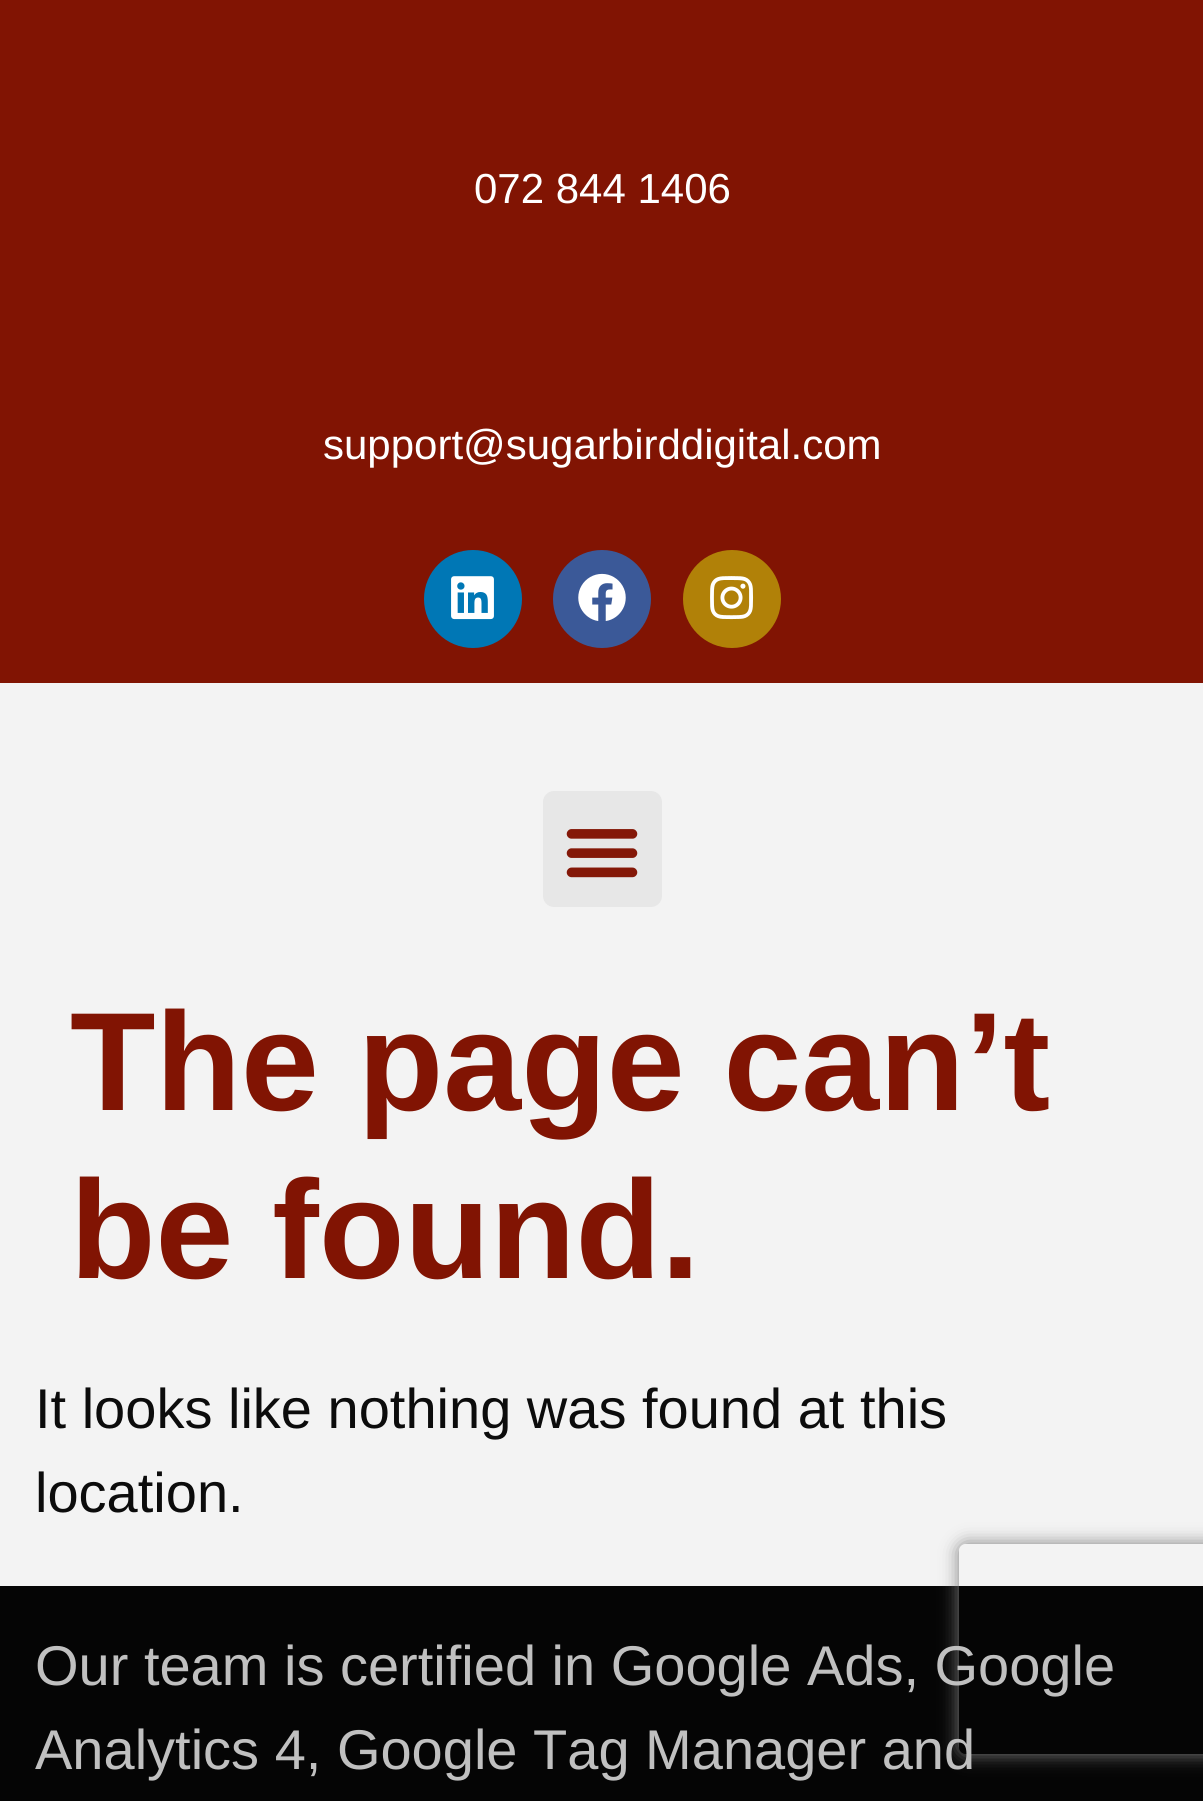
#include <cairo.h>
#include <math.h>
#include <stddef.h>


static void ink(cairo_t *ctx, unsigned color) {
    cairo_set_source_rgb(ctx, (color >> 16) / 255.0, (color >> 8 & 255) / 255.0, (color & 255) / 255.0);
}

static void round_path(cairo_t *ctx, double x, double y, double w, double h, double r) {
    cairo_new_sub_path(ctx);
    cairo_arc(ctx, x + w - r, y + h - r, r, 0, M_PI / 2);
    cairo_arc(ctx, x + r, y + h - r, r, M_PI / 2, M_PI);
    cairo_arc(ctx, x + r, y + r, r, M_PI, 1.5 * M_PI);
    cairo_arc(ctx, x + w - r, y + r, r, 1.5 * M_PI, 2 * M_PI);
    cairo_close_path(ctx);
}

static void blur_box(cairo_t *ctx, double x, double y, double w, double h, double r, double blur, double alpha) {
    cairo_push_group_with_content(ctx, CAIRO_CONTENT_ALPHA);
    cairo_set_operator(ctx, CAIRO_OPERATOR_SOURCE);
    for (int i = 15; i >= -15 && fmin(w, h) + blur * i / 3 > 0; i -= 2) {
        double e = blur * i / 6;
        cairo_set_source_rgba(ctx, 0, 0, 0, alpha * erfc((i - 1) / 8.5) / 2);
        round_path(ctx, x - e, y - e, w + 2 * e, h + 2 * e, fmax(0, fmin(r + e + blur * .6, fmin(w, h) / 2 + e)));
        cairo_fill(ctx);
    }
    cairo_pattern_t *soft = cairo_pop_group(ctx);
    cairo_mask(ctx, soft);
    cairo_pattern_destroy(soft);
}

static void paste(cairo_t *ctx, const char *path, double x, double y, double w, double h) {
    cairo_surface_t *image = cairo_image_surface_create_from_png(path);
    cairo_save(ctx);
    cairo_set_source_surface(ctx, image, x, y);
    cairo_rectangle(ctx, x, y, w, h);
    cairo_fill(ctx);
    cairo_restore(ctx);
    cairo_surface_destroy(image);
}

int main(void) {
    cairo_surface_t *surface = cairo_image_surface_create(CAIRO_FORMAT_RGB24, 1203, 1801);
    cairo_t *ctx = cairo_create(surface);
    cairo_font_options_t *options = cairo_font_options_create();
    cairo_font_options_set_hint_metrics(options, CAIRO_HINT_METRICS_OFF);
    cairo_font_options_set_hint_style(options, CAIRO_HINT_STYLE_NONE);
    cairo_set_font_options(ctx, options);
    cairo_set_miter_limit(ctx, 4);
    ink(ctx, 0xF3F3F3);
    cairo_paint(ctx);
    ink(ctx, 0x811403);
    cairo_rectangle(ctx, 0, 0, 1203, 683);
    cairo_fill(ctx);
    cairo_select_font_face(ctx, "Liberation Sans", CAIRO_FONT_SLANT_NORMAL, CAIRO_FONT_WEIGHT_NORMAL);
    cairo_set_font_size(ctx, 42);
    ink(ctx, 0xFFFFFF);
    cairo_move_to(ctx, 474, 203);
    cairo_show_text(ctx, "072 844 1406");
    cairo_move_to(ctx, 323, 459);
    cairo_show_text(ctx, "support@sugarbirddigital.com");
    ink(ctx, 0x0077B5);
    cairo_new_path(ctx);
    cairo_arc(ctx, 473, 599, 49, 0, 2 * M_PI);
    cairo_fill(ctx);
    paste(ctx, "media/1.png", 451, 576, 43, 44);
    ink(ctx, 0x3B5998);
    cairo_arc(ctx, 602, 599, 49, 0, 2 * M_PI);
    cairo_fill(ctx);
    paste(ctx, "media/2.png", 578, 573, 48, 48);
    ink(ctx, 0xB18108);
    cairo_arc(ctx, 732, 599, 49, 0, 2 * M_PI);
    cairo_fill(ctx);
    paste(ctx, "media/3.png", 710, 576, 44, 44);
    ink(ctx, 0xE7E7E7);
    round_path(ctx, 543, 791, 119, 116, 11);
    cairo_fill(ctx);
    paste(ctx, "media/4.png", 566, 829, 72, 49);
    cairo_select_font_face(ctx, "Liberation Sans", CAIRO_FONT_SLANT_NORMAL, CAIRO_FONT_WEIGHT_BOLD);
    cairo_set_font_size(ctx, 140);
    ink(ctx, 0x811403);
    cairo_move_to(ctx, 70, 1110);
    cairo_show_text(ctx, "The page can’t");
    cairo_move_to(ctx, 70, 1278);
    cairo_show_text(ctx, "be found.");
    cairo_select_font_face(ctx, "Liberation Sans", CAIRO_FONT_SLANT_NORMAL, CAIRO_FONT_WEIGHT_NORMAL);
    cairo_set_font_size(ctx, 56);
    ink(ctx, 0x0C0C0C);
    cairo_move_to(ctx, 35, 1428);
    cairo_show_text(ctx, "It looks like nothing was found at this");
    cairo_move_to(ctx, 35, 1512);
    cairo_show_text(ctx, "location.");
    ink(ctx, 0x050505);
    cairo_rectangle(ctx, 0, 1586, 1203, 215);
    cairo_fill(ctx);
    cairo_save(ctx);
    cairo_set_fill_rule(ctx, CAIRO_FILL_RULE_EVEN_ODD);
    cairo_new_path(ctx);
    cairo_move_to(ctx, 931, 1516);
    cairo_line_to(ctx, 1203, 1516);
    cairo_line_to(ctx, 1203, 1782);
    cairo_line_to(ctx, 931, 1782);
    cairo_close_path(ctx);
    cairo_move_to(ctx, 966, 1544);
    cairo_line_to(ctx, 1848, 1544);
    cairo_curve_to(ctx, 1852, 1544, 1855, 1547, 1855, 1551);
    cairo_line_to(ctx, 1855, 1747);
    cairo_curve_to(ctx, 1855, 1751, 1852, 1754, 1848, 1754);
    cairo_line_to(ctx, 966, 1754);
    cairo_curve_to(ctx, 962, 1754, 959, 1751, 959, 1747);
    cairo_line_to(ctx, 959, 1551);
    cairo_curve_to(ctx, 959, 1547, 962, 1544, 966, 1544);
    cairo_close_path(ctx);
    cairo_clip(ctx);
    ink(ctx, 0x808080);
    blur_box(ctx, 959, 1544, 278, 210, 7, 9, 1);
    cairo_restore(ctx);
    ink(ctx, 0xC0C0C0);
    cairo_move_to(ctx, 35, 1685);
    cairo_show_text(ctx, "Our team is certified in Google Ads, Google");
    cairo_move_to(ctx, 35, 1769);
    cairo_show_text(ctx, "Analytics 4, Google Tag Manager and");
    cairo_surface_write_to_png(surface, "image.png");
    cairo_font_options_destroy(options);
    cairo_destroy(ctx);
    cairo_surface_destroy(surface);
    return 0;
}
